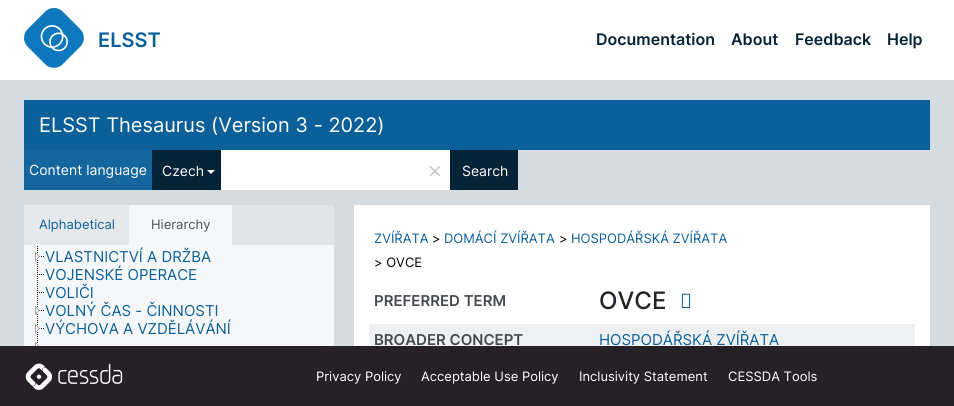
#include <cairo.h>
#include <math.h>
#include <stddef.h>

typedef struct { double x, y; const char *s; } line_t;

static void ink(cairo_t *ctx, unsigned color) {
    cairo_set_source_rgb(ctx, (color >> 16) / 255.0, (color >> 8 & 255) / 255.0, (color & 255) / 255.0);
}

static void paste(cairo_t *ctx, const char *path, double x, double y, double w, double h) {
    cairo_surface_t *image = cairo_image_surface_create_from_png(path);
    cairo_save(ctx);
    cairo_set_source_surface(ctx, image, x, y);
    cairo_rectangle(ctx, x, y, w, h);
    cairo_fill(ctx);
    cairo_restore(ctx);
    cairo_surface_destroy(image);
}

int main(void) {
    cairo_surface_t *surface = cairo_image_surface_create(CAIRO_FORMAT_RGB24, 954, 406);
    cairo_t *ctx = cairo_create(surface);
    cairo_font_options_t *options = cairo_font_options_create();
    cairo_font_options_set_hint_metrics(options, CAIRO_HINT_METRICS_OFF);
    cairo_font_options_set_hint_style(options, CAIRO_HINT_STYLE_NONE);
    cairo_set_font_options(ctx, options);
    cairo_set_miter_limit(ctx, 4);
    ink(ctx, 0xD5DBDE);
    cairo_paint(ctx);
    ink(ctx, 0xFFFFFF);
    cairo_rectangle(ctx, 0, 0, 954, 80);
    cairo_fill(ctx);
    paste(ctx, "media/1.png", 24, 8, 60, 60);
    cairo_select_font_face(ctx, "Inter SemiBold", CAIRO_FONT_SLANT_NORMAL, CAIRO_FONT_WEIGHT_NORMAL);
    cairo_set_font_size(ctx, 20);
    ink(ctx, 0x0B6099);
    cairo_move_to(ctx, 98, 47);
    cairo_show_text(ctx, "ELSST");
    cairo_set_font_size(ctx, 16);
    ink(ctx, 0x052438);
    {
        static const line_t items[] = {
            {596, 45, "Documentation"},
            {731, 45, "About"},
            {795, 45, "Feedback"},
            {887, 45, "Help"},
        };
        for (size_t i = 0; i < sizeof items / sizeof *items; i++) {
            cairo_move_to(ctx, items[i].x, items[i].y);
            cairo_show_text(ctx, items[i].s);
        }
    }
    ink(ctx, 0x0B6099);
    cairo_rectangle(ctx, 24, 100, 906, 50);
    cairo_fill(ctx);
    cairo_select_font_face(ctx, "Inter", CAIRO_FONT_SLANT_NORMAL, CAIRO_FONT_WEIGHT_NORMAL);
    cairo_set_font_size(ctx, 20);
    ink(ctx, 0xFDFDFE);
    cairo_move_to(ctx, 39, 132);
    cairo_show_text(ctx, "ELSST Thesaurus (Version 3 - 2022)");
    ink(ctx, 0x15669C);
    cairo_rectangle(ctx, 24, 150, 128, 40);
    cairo_fill(ctx);
    cairo_set_font_size(ctx, 14);
    ink(ctx, 0xFDFDFE);
    cairo_move_to(ctx, 29, 175);
    cairo_show_text(ctx, "Content language");
    ink(ctx, 0x052438);
    cairo_rectangle(ctx, 152, 150, 69, 40);
    cairo_fill(ctx);
    ink(ctx, 0xFDFDFE);
    cairo_move_to(ctx, 162, 176);
    cairo_show_text(ctx, "Czech");
    ink(ctx, 0xFFFFFF);
    cairo_new_path(ctx);
    cairo_move_to(ctx, 207, 170);
    cairo_line_to(ctx, 215, 170);
    cairo_line_to(ctx, 211, 174);
    cairo_close_path(ctx);
    cairo_fill(ctx);
    cairo_rectangle(ctx, 221, 150, 229, 40);
    cairo_fill(ctx);
    cairo_set_font_size(ctx, 24);
    ink(ctx, 0xCCCCCC);
    cairo_move_to(ctx, 427, 178);
    cairo_show_text(ctx, "×");
    ink(ctx, 0x052438);
    cairo_rectangle(ctx, 450, 150, 68, 40);
    cairo_fill(ctx);
    cairo_set_font_size(ctx, 14);
    ink(ctx, 0xFDFDFE);
    cairo_move_to(ctx, 462, 176);
    cairo_show_text(ctx, "Search");
    ink(ctx, 0xE0E4E7);
    cairo_rectangle(ctx, 232, 205, 102, 40);
    cairo_fill(ctx);
    ink(ctx, 0xE6E9EB);
    cairo_rectangle(ctx, 24, 205, 105, 40);
    cairo_fill(ctx);
    cairo_set_font_size(ctx, 13);
    ink(ctx, 0x0B6099);
    cairo_move_to(ctx, 39, 229);
    cairo_show_text(ctx, "Alphabetical");
    ink(ctx, 0xF6F7F8);
    cairo_rectangle(ctx, 129, 205, 103, 40);
    cairo_fill(ctx);
    ink(ctx, 0x495057);
    cairo_move_to(ctx, 151, 229);
    cairo_show_text(ctx, "Hierarchy");
    ink(ctx, 0xF6F7F8);
    cairo_rectangle(ctx, 24, 245, 310, 101);
    cairo_fill(ctx);
    ink(ctx, 0x1D1D1B);
    cairo_rectangle(ctx, 37, 246, 1, 1);
    cairo_fill(ctx);
    paste(ctx, "media/2.png", 37, 248, 1, 17);
    paste(ctx, "media/3.png", 35, 252, 9, 9);
    cairo_set_font_size(ctx, 15);
    ink(ctx, 0x0B6099);
    cairo_move_to(ctx, 45, 262);
    cairo_show_text(ctx, "VLASTNICTVÍ A DRŽBA");
    paste(ctx, "media/2.png", 37, 266, 1, 17);
    paste(ctx, "media/4.png", 39, 274, 5, 1);
    cairo_move_to(ctx, 45, 280);
    cairo_show_text(ctx, "VOJENSKÉ OPERACE");
    paste(ctx, "media/2.png", 37, 284, 1, 17);
    paste(ctx, "media/4.png", 39, 292, 5, 1);
    cairo_move_to(ctx, 45, 298);
    cairo_show_text(ctx, "VOLIČI");
    paste(ctx, "media/2.png", 37, 302, 1, 17);
    paste(ctx, "media/3.png", 35, 306, 9, 9);
    cairo_move_to(ctx, 45, 316);
    cairo_show_text(ctx, "VOLNÝ ČAS - ČINNOSTI");
    paste(ctx, "media/2.png", 37, 320, 1, 17);
    paste(ctx, "media/3.png", 35, 324, 9, 9);
    cairo_move_to(ctx, 45, 334);
    cairo_show_text(ctx, "VÝCHOVA A VZDĚLÁVÁNÍ");
    paste(ctx, "media/5.png", 37, 338, 1, 3);
    paste(ctx, "media/6.png", 35, 342, 4, 4);
    ink(ctx, 0xFFFFFF);
    cairo_rectangle(ctx, 354, 205, 576, 141);
    cairo_fill(ctx);
    cairo_set_font_size(ctx, 13);
    ink(ctx, 0x0B6099);
    cairo_move_to(ctx, 374, 243);
    cairo_show_text(ctx, "ZVÍŘATA");
    ink(ctx, 0x000000);
    cairo_move_to(ctx, 432, 243);
    cairo_show_text(ctx, ">");
    ink(ctx, 0x0B6099);
    cairo_move_to(ctx, 444, 243);
    cairo_show_text(ctx, "DOMÁCÍ ZVÍŘATA");
    ink(ctx, 0x000000);
    cairo_move_to(ctx, 559, 243);
    cairo_show_text(ctx, ">");
    ink(ctx, 0x0B6099);
    cairo_move_to(ctx, 571, 243);
    cairo_show_text(ctx, "HOSPODÁŘSKÁ ZVÍŘATA");
    ink(ctx, 0x000000);
    cairo_move_to(ctx, 374, 267);
    cairo_show_text(ctx, "> OVCE");
    cairo_select_font_face(ctx, "Inter SemiBold", CAIRO_FONT_SLANT_NORMAL, CAIRO_FONT_WEIGHT_NORMAL);
    cairo_set_font_size(ctx, 15);
    ink(ctx, 0x474B4F);
    cairo_move_to(ctx, 374, 306);
    cairo_show_text(ctx, "PREFERRED TERM");
    cairo_select_font_face(ctx, "Inter Medium", CAIRO_FONT_SLANT_NORMAL, CAIRO_FONT_WEIGHT_NORMAL);
    cairo_set_font_size(ctx, 24);
    ink(ctx, 0x212529);
    cairo_move_to(ctx, 599, 309);
    cairo_show_text(ctx, "OVCE");
    paste(ctx, "media/7.png", 681, 293, 10, 15);
    ink(ctx, 0xEFF0F1);
    cairo_rectangle(ctx, 369, 324, 546, 22);
    cairo_fill(ctx);
    cairo_select_font_face(ctx, "Inter SemiBold", CAIRO_FONT_SLANT_NORMAL, CAIRO_FONT_WEIGHT_NORMAL);
    cairo_set_font_size(ctx, 15);
    ink(ctx, 0x474B4F);
    cairo_move_to(ctx, 374, 345);
    cairo_show_text(ctx, "BROADER CONCEPT");
    cairo_select_font_face(ctx, "Inter", CAIRO_FONT_SLANT_NORMAL, CAIRO_FONT_WEIGHT_NORMAL);
    ink(ctx, 0x0B6099);
    cairo_move_to(ctx, 599, 345);
    cairo_show_text(ctx, "HOSPODÁŘSKÁ ZVÍŘATA");
    ink(ctx, 0x262126);
    cairo_rectangle(ctx, 0, 346, 954, 60);
    cairo_fill(ctx);
    paste(ctx, "media/8.png", 25, 363, 98, 27);
    cairo_set_font_size(ctx, 13);
    ink(ctx, 0xFDFDFE);
    {
        static const line_t items[] = {
            {316, 381, "Privacy Policy"},
            {421, 381, "Acceptable Use Policy"},
            {579, 381, "Inclusivity Statement"},
            {728, 381, "CESSDA Tools"},
        };
        for (size_t i = 0; i < sizeof items / sizeof *items; i++) {
            cairo_move_to(ctx, items[i].x, items[i].y);
            cairo_show_text(ctx, items[i].s);
        }
    }
    cairo_surface_write_to_png(surface, "image.png");
    cairo_font_options_destroy(options);
    cairo_destroy(ctx);
    cairo_surface_destroy(surface);
    return 0;
}
